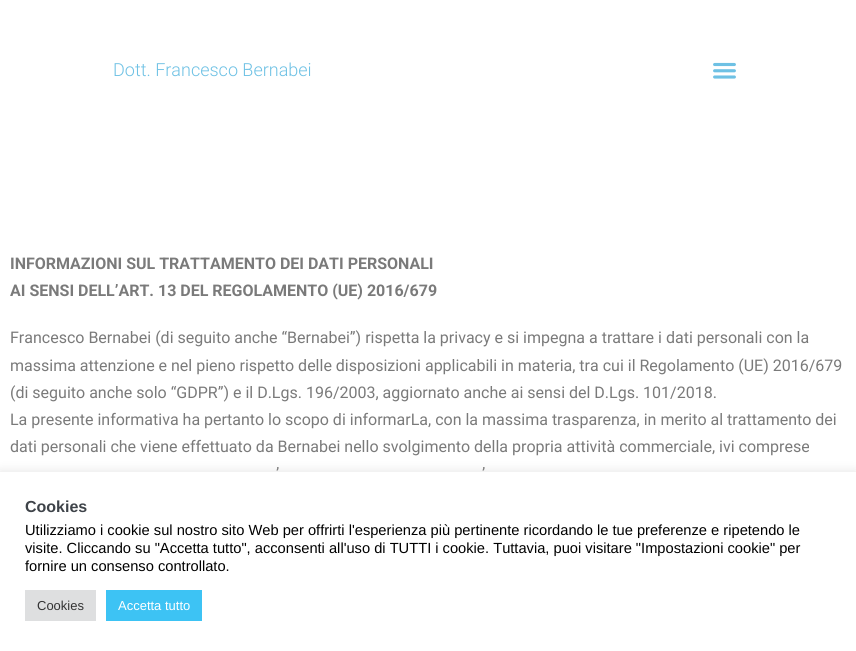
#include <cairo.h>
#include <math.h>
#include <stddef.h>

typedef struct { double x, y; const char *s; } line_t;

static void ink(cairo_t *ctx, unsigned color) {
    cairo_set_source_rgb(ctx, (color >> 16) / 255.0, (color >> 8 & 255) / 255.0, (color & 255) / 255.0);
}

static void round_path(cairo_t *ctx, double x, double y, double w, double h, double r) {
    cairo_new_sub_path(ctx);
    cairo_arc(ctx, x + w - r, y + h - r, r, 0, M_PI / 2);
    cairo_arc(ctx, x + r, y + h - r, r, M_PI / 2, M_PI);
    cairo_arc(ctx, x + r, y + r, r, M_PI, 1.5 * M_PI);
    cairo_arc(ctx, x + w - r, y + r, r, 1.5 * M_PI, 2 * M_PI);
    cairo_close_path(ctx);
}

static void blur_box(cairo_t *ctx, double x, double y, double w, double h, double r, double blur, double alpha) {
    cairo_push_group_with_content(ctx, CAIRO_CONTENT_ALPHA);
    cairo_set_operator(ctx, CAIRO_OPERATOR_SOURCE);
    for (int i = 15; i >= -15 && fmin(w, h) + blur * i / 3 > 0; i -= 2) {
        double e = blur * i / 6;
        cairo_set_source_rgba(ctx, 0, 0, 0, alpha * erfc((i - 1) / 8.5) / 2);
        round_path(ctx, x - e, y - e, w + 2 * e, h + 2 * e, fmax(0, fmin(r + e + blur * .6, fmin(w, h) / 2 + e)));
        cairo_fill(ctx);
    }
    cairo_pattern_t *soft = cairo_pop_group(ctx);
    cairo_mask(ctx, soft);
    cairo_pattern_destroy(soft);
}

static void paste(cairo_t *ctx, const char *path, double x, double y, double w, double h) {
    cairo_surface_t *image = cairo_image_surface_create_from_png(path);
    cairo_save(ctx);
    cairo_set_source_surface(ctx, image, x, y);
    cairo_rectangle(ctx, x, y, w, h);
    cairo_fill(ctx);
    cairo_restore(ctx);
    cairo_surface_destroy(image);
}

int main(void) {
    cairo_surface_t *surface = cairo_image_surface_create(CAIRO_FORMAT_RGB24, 856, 651);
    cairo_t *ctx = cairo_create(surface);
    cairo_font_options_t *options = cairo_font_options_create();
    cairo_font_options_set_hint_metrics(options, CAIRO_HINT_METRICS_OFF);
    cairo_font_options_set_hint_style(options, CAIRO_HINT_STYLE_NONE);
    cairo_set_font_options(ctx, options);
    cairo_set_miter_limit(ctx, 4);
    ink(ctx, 0xFFFFFF);
    cairo_paint(ctx);
    cairo_select_font_face(ctx, "Roboto Light", CAIRO_FONT_SLANT_NORMAL, CAIRO_FONT_WEIGHT_NORMAL);
    cairo_set_font_size(ctx, 18);
    ink(ctx, 0x6EC1E4);
    cairo_move_to(ctx, 113, 76);
    cairo_show_text(ctx, "Dott. Francesco Bernabei");
    paste(ctx, "media/1.png", 713, 62, 23, 17);
    cairo_select_font_face(ctx, "Roboto", CAIRO_FONT_SLANT_NORMAL, CAIRO_FONT_WEIGHT_BOLD);
    cairo_set_font_size(ctx, 16);
    ink(ctx, 0x7A7A7A);
    cairo_move_to(ctx, 10, 269);
    cairo_show_text(ctx, "INFORMAZIONI SUL TRATTAMENTO DEI DATI PERSONALI");
    cairo_move_to(ctx, 10, 296);
    cairo_show_text(ctx, "AI SENSI DELL’ART. 13 DEL REGOLAMENTO (UE) 2016/679");
    cairo_select_font_face(ctx, "Roboto", CAIRO_FONT_SLANT_NORMAL, CAIRO_FONT_WEIGHT_NORMAL);
    {
        static const line_t items[] = {
            {10, 343, "Francesco Bernabei (di seguito anche “Bernabei”) rispetta la privacy e si impegna a trattare i dati personali con la"},
            {10, 371, "massima attenzione e nel pieno rispetto delle disposizioni applicabili in materia, tra cui il Regolamento (UE) 2016/679"},
            {10, 398, "(di seguito anche solo “GDPR”) e il D.Lgs. 196/2003, aggiornato anche ai sensi del D.Lgs. 101/2018."},
            {10, 425, "La presente informativa ha pertanto lo scopo di informarLa, con la massima trasparenza, in merito al trattamento dei"},
            {10, 452, "dati personali che viene effettuato da Bernabei nello svolgimento della propria attività commerciale, ivi comprese"},
            {276, 479, "’"},
            {482, 479, "’"},
        };
        for (size_t i = 0; i < sizeof items / sizeof *items; i++) {
            cairo_move_to(ctx, items[i].x, items[i].y);
            cairo_show_text(ctx, items[i].s);
        }
    }
    ink(ctx, 0xACABAB);
    blur_box(ctx, 0, 471, 856, 179, 0, 5, 0.3);
    ink(ctx, 0xFFFFFF);
    cairo_rectangle(ctx, 0, 472, 856, 179);
    cairo_fill(ctx);
    cairo_select_font_face(ctx, "Liberation Sans", CAIRO_FONT_SLANT_NORMAL, CAIRO_FONT_WEIGHT_BOLD);
    ink(ctx, 0x3E4349);
    cairo_move_to(ctx, 25, 512);
    cairo_show_text(ctx, "Cookies");
    cairo_select_font_face(ctx, "Liberation Sans", CAIRO_FONT_SLANT_NORMAL, CAIRO_FONT_WEIGHT_NORMAL);
    cairo_set_font_size(ctx, 14.67);
    ink(ctx, 0x000000);
    {
        static const line_t items[] = {
            {25, 535, "Utilizziamo i cookie sul nostro sito Web per offrirti l'esperienza più pertinente ricordando le tue preferenze e ripetendo le"},
            {25, 553, "visite. Cliccando su \"Accetta tutto\", acconsenti all'uso di TUTTI i cookie. Tuttavia, puoi visitare \"Impostazioni cookie\" per"},
            {25, 571, "fornire un consenso controllato."},
        };
        for (size_t i = 0; i < sizeof items / sizeof *items; i++) {
            cairo_move_to(ctx, items[i].x, items[i].y);
            cairo_show_text(ctx, items[i].s);
        }
    }
    ink(ctx, 0xDEDFE0);
    cairo_rectangle(ctx, 25, 590, 71, 31);
    cairo_fill(ctx);
    cairo_set_font_size(ctx, 13);
    ink(ctx, 0x333333);
    cairo_move_to(ctx, 37, 610);
    cairo_show_text(ctx, "Cookies");
    ink(ctx, 0x3DC3F4);
    cairo_rectangle(ctx, 106, 590, 96, 31);
    cairo_fill(ctx);
    ink(ctx, 0xFFFFFF);
    cairo_move_to(ctx, 118, 610);
    cairo_show_text(ctx, "Accetta tutto");
    cairo_surface_write_to_png(surface, "image.png");
    cairo_font_options_destroy(options);
    cairo_destroy(ctx);
    cairo_surface_destroy(surface);
    return 0;
}
